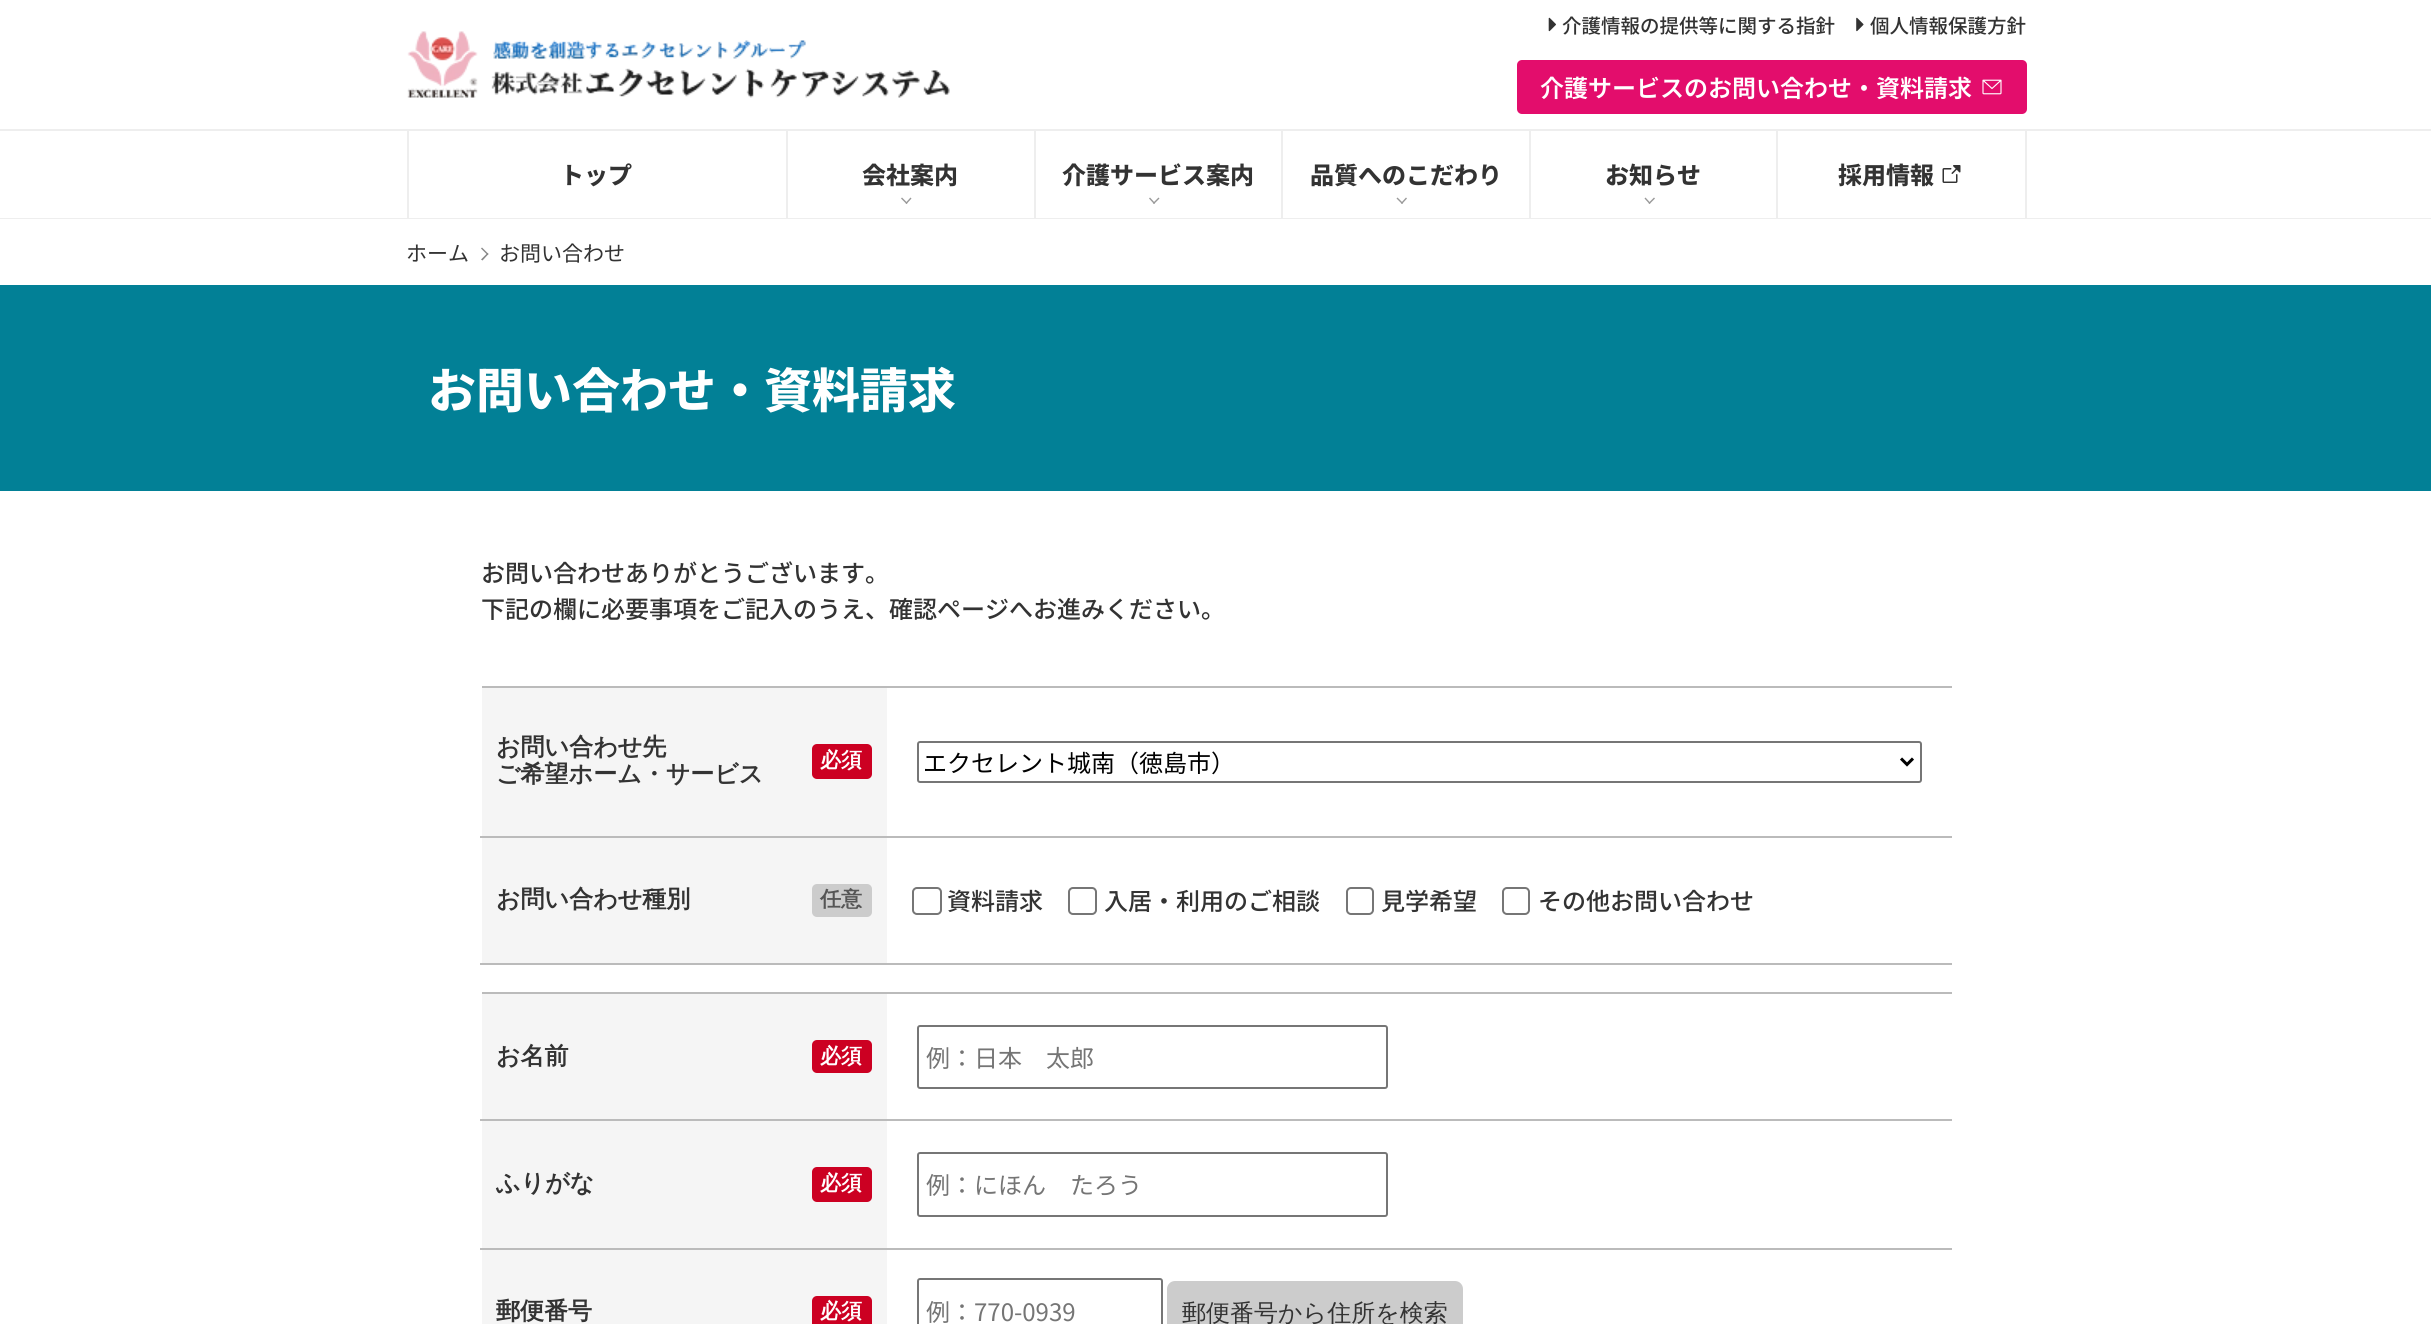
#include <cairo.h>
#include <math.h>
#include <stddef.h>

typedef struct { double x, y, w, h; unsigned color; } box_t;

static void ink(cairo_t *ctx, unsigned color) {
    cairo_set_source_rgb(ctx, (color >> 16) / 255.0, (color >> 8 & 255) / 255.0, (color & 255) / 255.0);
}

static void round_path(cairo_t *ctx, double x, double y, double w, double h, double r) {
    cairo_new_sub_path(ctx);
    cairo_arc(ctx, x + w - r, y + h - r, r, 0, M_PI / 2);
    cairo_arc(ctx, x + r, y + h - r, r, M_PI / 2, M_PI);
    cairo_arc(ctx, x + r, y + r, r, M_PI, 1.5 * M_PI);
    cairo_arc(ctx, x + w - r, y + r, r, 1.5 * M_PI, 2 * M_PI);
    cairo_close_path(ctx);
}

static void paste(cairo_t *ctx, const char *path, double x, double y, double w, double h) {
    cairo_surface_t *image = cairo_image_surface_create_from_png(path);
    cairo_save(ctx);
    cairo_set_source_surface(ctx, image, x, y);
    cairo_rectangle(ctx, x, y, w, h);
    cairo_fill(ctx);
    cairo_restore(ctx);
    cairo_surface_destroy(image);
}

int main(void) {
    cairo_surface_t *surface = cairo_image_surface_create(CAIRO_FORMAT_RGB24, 2431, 1324);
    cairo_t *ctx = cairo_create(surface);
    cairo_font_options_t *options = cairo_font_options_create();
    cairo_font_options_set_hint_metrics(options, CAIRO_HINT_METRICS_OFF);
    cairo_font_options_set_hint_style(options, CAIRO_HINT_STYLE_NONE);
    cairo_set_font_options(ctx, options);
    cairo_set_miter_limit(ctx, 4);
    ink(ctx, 0xFFFFFF);
    cairo_paint(ctx);
    paste(ctx, "media/1.png", 407, 31, 543, 67);
    paste(ctx, "media/2.png", 1548, 17, 8, 15);
    cairo_select_font_face(ctx, "Noto Sans JP Medium", CAIRO_FONT_SLANT_NORMAL, CAIRO_FONT_WEIGHT_NORMAL);
    cairo_set_font_size(ctx, 19.5);
    ink(ctx, 0x333333);
    cairo_move_to(ctx, 1562, 33);
    cairo_show_text(ctx, "介護情報の提供等に関する指針");
    paste(ctx, "media/3.png", 1856, 17, 8, 15);
    cairo_move_to(ctx, 1870, 33);
    cairo_show_text(ctx, "個人情報保護方針");
    ink(ctx, 0xE30D6C);
    round_path(ctx, 1517, 60, 510, 54, 5);
    cairo_fill(ctx);
    cairo_select_font_face(ctx, "Noto Sans JP SemiBold", CAIRO_FONT_SLANT_NORMAL, CAIRO_FONT_WEIGHT_NORMAL);
    cairo_set_font_size(ctx, 24);
    ink(ctx, 0xFFFFFF);
    cairo_move_to(ctx, 1540, 97);
    cairo_show_text(ctx, "介護サービスのお問い合わせ・資料請求");
    paste(ctx, "media/4.png", 1982, 79, 20, 16);
    {
        static const box_t items[] = {
            {0, 129, 2431, 2, 0xEEEEEE},
            {0, 218, 2431, 1, 0xEEEEEE},
            {786, 131, 2, 87, 0xEEEEEE},
            {407, 131, 2, 87, 0xEEEEEE},
        };
        for (size_t i = 0; i < sizeof items / sizeof *items; i++) {
            ink(ctx, items[i].color);
            cairo_rectangle(ctx, items[i].x, items[i].y, items[i].w, items[i].h);
            cairo_fill(ctx);
        }
    }
    cairo_select_font_face(ctx, "Noto Sans JP ExtraBold", CAIRO_FONT_SLANT_NORMAL, CAIRO_FONT_WEIGHT_NORMAL);
    ink(ctx, 0x333333);
    cairo_move_to(ctx, 560, 184);
    cairo_show_text(ctx, "トップ");
    ink(ctx, 0xEEEEEE);
    cairo_rectangle(ctx, 1034, 131, 2, 87);
    cairo_fill(ctx);
    ink(ctx, 0x333333);
    cairo_move_to(ctx, 862, 184);
    cairo_show_text(ctx, "会社案内");
    ink(ctx, 0x999999);
    cairo_new_path(ctx);
    cairo_move_to(ctx, 911.5, 198.5);
    cairo_line_to(ctx, 906.5, 204);
    cairo_line_to(ctx, 905.5, 203);
    cairo_line_to(ctx, 910.5, 197.5);
    cairo_close_path(ctx);
    cairo_fill(ctx);
    cairo_new_path(ctx);
    cairo_move_to(ctx, 907.5, 203);
    cairo_line_to(ctx, 906.5, 204);
    cairo_line_to(ctx, 901, 198.5);
    cairo_line_to(ctx, 902, 197.5);
    cairo_close_path(ctx);
    cairo_fill(ctx);
    ink(ctx, 0xEEEEEE);
    cairo_rectangle(ctx, 1281, 131, 2, 87);
    cairo_fill(ctx);
    ink(ctx, 0x333333);
    cairo_move_to(ctx, 1062, 184);
    cairo_show_text(ctx, "介護サービス案内");
    ink(ctx, 0x999999);
    cairo_new_path(ctx);
    cairo_move_to(ctx, 1159.5, 198.5);
    cairo_line_to(ctx, 1154, 204);
    cairo_line_to(ctx, 1153, 203);
    cairo_line_to(ctx, 1158.5, 197.5);
    cairo_close_path(ctx);
    cairo_fill(ctx);
    cairo_new_path(ctx);
    cairo_move_to(ctx, 1155, 203);
    cairo_line_to(ctx, 1154, 204);
    cairo_line_to(ctx, 1149, 198.5);
    cairo_line_to(ctx, 1150, 197.5);
    cairo_close_path(ctx);
    cairo_fill(ctx);
    ink(ctx, 0xEEEEEE);
    cairo_rectangle(ctx, 1529, 131, 2, 87);
    cairo_fill(ctx);
    ink(ctx, 0x333333);
    cairo_move_to(ctx, 1310, 184);
    cairo_show_text(ctx, "品質へのこだわり");
    ink(ctx, 0x999999);
    cairo_new_path(ctx);
    cairo_move_to(ctx, 1407, 198.5);
    cairo_line_to(ctx, 1402, 204);
    cairo_line_to(ctx, 1401, 203);
    cairo_line_to(ctx, 1406, 197.5);
    cairo_close_path(ctx);
    cairo_fill(ctx);
    cairo_new_path(ctx);
    cairo_move_to(ctx, 1403, 203);
    cairo_line_to(ctx, 1402, 204);
    cairo_line_to(ctx, 1396.5, 198.5);
    cairo_line_to(ctx, 1397.5, 197.5);
    cairo_close_path(ctx);
    cairo_fill(ctx);
    ink(ctx, 0xEEEEEE);
    cairo_rectangle(ctx, 1776, 131, 2, 87);
    cairo_fill(ctx);
    ink(ctx, 0x333333);
    cairo_move_to(ctx, 1605, 184);
    cairo_show_text(ctx, "お知らせ");
    ink(ctx, 0x999999);
    cairo_new_path(ctx);
    cairo_move_to(ctx, 1655, 198.5);
    cairo_line_to(ctx, 1649.5, 204);
    cairo_line_to(ctx, 1648.5, 203);
    cairo_line_to(ctx, 1654, 197.5);
    cairo_close_path(ctx);
    cairo_fill(ctx);
    cairo_new_path(ctx);
    cairo_move_to(ctx, 1650.5, 203);
    cairo_line_to(ctx, 1649.5, 204);
    cairo_line_to(ctx, 1644.5, 198.5);
    cairo_line_to(ctx, 1645.5, 197.5);
    cairo_close_path(ctx);
    cairo_fill(ctx);
    ink(ctx, 0xEEEEEE);
    cairo_rectangle(ctx, 2025, 131, 2, 87);
    cairo_fill(ctx);
    ink(ctx, 0x333333);
    cairo_move_to(ctx, 1838, 184);
    cairo_show_text(ctx, "採用情報");
    paste(ctx, "media/5.png", 1942, 165, 19, 18);
    cairo_select_font_face(ctx, "Noto Sans JP", CAIRO_FONT_SLANT_NORMAL, CAIRO_FONT_WEIGHT_NORMAL);
    cairo_set_font_size(ctx, 21);
    cairo_move_to(ctx, 406, 261);
    cairo_show_text(ctx, "ホーム");
    ink(ctx, 0x888888);
    cairo_new_path(ctx);
    cairo_move_to(ctx, 482, 247.5);
    cairo_line_to(ctx, 488.5, 254);
    cairo_line_to(ctx, 487.5, 255);
    cairo_line_to(ctx, 481, 248.5);
    cairo_close_path(ctx);
    cairo_fill(ctx);
    cairo_new_path(ctx);
    cairo_move_to(ctx, 487.5, 253);
    cairo_line_to(ctx, 488.5, 254);
    cairo_line_to(ctx, 482.5, 260.5);
    cairo_line_to(ctx, 481, 259.5);
    cairo_close_path(ctx);
    cairo_fill(ctx);
    ink(ctx, 0x333333);
    cairo_move_to(ctx, 499, 261);
    cairo_show_text(ctx, "お問い合わせ");
    ink(ctx, 0x028096);
    cairo_rectangle(ctx, 0, 285, 2431, 206);
    cairo_fill(ctx);
    cairo_select_font_face(ctx, "Noto Sans JP ExtraBold", CAIRO_FONT_SLANT_NORMAL, CAIRO_FONT_WEIGHT_NORMAL);
    cairo_set_font_size(ctx, 48);
    ink(ctx, 0xFFFFFF);
    cairo_move_to(ctx, 428, 408);
    cairo_show_text(ctx, "お問い合わせ・資料請求");
    cairo_select_font_face(ctx, "Noto Sans JP Medium", CAIRO_FONT_SLANT_NORMAL, CAIRO_FONT_WEIGHT_NORMAL);
    cairo_set_font_size(ctx, 24);
    ink(ctx, 0x333333);
    cairo_move_to(ctx, 481, 582);
    cairo_show_text(ctx, "お問い合わせありがとうございます。");
    cairo_move_to(ctx, 481, 618);
    cairo_show_text(ctx, "下記の欄に必要事項をご記入のうえ、確認ページへお進みください。");
    ink(ctx, 0xBBBBBB);
    cairo_rectangle(ctx, 482, 686, 1470, 2);
    cairo_fill(ctx);
    ink(ctx, 0xF5F5F5);
    cairo_rectangle(ctx, 482, 688, 405, 148);
    cairo_fill(ctx);
    cairo_select_font_face(ctx, "WenQuanYi Zen Hei", CAIRO_FONT_SLANT_NORMAL, CAIRO_FONT_WEIGHT_BOLD);
    ink(ctx, 0x333333);
    cairo_move_to(ctx, 496, 755);
    cairo_show_text(ctx, "お問い合わせ先");
    cairo_move_to(ctx, 496, 782);
    cairo_show_text(ctx, "ご希望ホーム・サービス");
    ink(ctx, 0xCC0022);
    round_path(ctx, 812, 744, 60, 35, 5);
    cairo_fill(ctx);
    cairo_set_font_size(ctx, 21);
    ink(ctx, 0xFFFFFF);
    cairo_move_to(ctx, 820, 767);
    cairo_show_text(ctx, "必須");
    ink(ctx, 0xBBBBBB);
    cairo_rectangle(ctx, 480, 836, 1472, 2);
    cairo_fill(ctx);
    round_path(ctx, 918, 742, 1003, 40, 2);
    ink(ctx, 0x767676);
    cairo_stroke(ctx);
    cairo_new_path(ctx);
    cairo_move_to(ctx, 1901, 758.5);
    cairo_line_to(ctx, 1907, 764.5);
    cairo_line_to(ctx, 1913, 758.5);
    ink(ctx, 0x000000);
    cairo_set_line_width(ctx, 3);
    cairo_stroke(ctx);
    cairo_select_font_face(ctx, "Noto Sans JP", CAIRO_FONT_SLANT_NORMAL, CAIRO_FONT_WEIGHT_NORMAL);
    cairo_set_font_size(ctx, 24);
    cairo_move_to(ctx, 923, 772);
    cairo_show_text(ctx, "エクセレント城南（徳島市）");
    ink(ctx, 0xF5F5F5);
    cairo_rectangle(ctx, 482, 838, 405, 125);
    cairo_fill(ctx);
    cairo_select_font_face(ctx, "WenQuanYi Zen Hei", CAIRO_FONT_SLANT_NORMAL, CAIRO_FONT_WEIGHT_BOLD);
    ink(ctx, 0x333333);
    cairo_move_to(ctx, 496, 907);
    cairo_show_text(ctx, "お問い合わせ種別");
    ink(ctx, 0xCCCCCC);
    round_path(ctx, 812, 884, 60, 33, 5);
    cairo_fill(ctx);
    cairo_set_font_size(ctx, 21);
    ink(ctx, 0x555555);
    cairo_move_to(ctx, 820, 906);
    cairo_show_text(ctx, "任意");
    ink(ctx, 0xBBBBBB);
    cairo_rectangle(ctx, 480, 963, 1472, 2);
    cairo_fill(ctx);
    round_path(ctx, 913, 888, 28, 26, 4);
    ink(ctx, 0x767676);
    cairo_set_line_width(ctx, 2);
    cairo_stroke(ctx);
    cairo_select_font_face(ctx, "Noto Sans JP Medium", CAIRO_FONT_SLANT_NORMAL, CAIRO_FONT_WEIGHT_NORMAL);
    cairo_set_font_size(ctx, 24);
    ink(ctx, 0x333333);
    cairo_move_to(ctx, 947, 910);
    cairo_show_text(ctx, "資料請求");
    round_path(ctx, 1069, 888, 27, 26, 4);
    ink(ctx, 0x767676);
    cairo_stroke(ctx);
    ink(ctx, 0x333333);
    cairo_move_to(ctx, 1104, 910);
    cairo_show_text(ctx, "入居・利用のご相談");
    round_path(ctx, 1347, 888, 26, 26, 4);
    ink(ctx, 0x767676);
    cairo_stroke(ctx);
    ink(ctx, 0x333333);
    cairo_move_to(ctx, 1381, 910);
    cairo_show_text(ctx, "見学希望");
    round_path(ctx, 1503, 888, 26, 26, 4);
    ink(ctx, 0x767676);
    cairo_stroke(ctx);
    ink(ctx, 0x333333);
    cairo_move_to(ctx, 1538, 910);
    cairo_show_text(ctx, "その他お問い合わせ");
    ink(ctx, 0xBBBBBB);
    cairo_rectangle(ctx, 482, 992, 1470, 2);
    cairo_fill(ctx);
    ink(ctx, 0xF5F5F5);
    cairo_rectangle(ctx, 482, 994, 405, 125);
    cairo_fill(ctx);
    cairo_select_font_face(ctx, "WenQuanYi Zen Hei", CAIRO_FONT_SLANT_NORMAL, CAIRO_FONT_WEIGHT_BOLD);
    ink(ctx, 0x333333);
    cairo_move_to(ctx, 496, 1064);
    cairo_show_text(ctx, "お名前");
    ink(ctx, 0xCC0022);
    round_path(ctx, 812, 1040, 60, 33, 5);
    cairo_fill(ctx);
    cairo_set_font_size(ctx, 21);
    ink(ctx, 0xFFFFFF);
    cairo_move_to(ctx, 820, 1063);
    cairo_show_text(ctx, "必須");
    ink(ctx, 0xBBBBBB);
    cairo_rectangle(ctx, 480, 1119, 1472, 2);
    cairo_fill(ctx);
    round_path(ctx, 918, 1026, 469, 62, 2);
    ink(ctx, 0x767676);
    cairo_stroke(ctx);
    cairo_select_font_face(ctx, "Noto Sans JP", CAIRO_FONT_SLANT_NORMAL, CAIRO_FONT_WEIGHT_NORMAL);
    cairo_set_font_size(ctx, 24);
    ink(ctx, 0x757575);
    cairo_move_to(ctx, 926, 1067);
    cairo_show_text(ctx, "例：日本　太郎");
    ink(ctx, 0xF5F5F5);
    cairo_rectangle(ctx, 482, 1121, 405, 127);
    cairo_fill(ctx);
    cairo_select_font_face(ctx, "WenQuanYi Zen Hei", CAIRO_FONT_SLANT_NORMAL, CAIRO_FONT_WEIGHT_BOLD);
    ink(ctx, 0x333333);
    cairo_move_to(ctx, 496, 1191);
    cairo_show_text(ctx, "ふりがな");
    ink(ctx, 0xCC0022);
    round_path(ctx, 812, 1167, 60, 35, 5);
    cairo_fill(ctx);
    cairo_set_font_size(ctx, 21);
    ink(ctx, 0xFFFFFF);
    cairo_move_to(ctx, 820, 1190);
    cairo_show_text(ctx, "必須");
    ink(ctx, 0xBBBBBB);
    cairo_rectangle(ctx, 480, 1248, 1472, 2);
    cairo_fill(ctx);
    round_path(ctx, 918, 1153, 469, 63, 2);
    ink(ctx, 0x767676);
    cairo_stroke(ctx);
    cairo_select_font_face(ctx, "Noto Sans JP", CAIRO_FONT_SLANT_NORMAL, CAIRO_FONT_WEIGHT_NORMAL);
    cairo_set_font_size(ctx, 24);
    ink(ctx, 0x757575);
    cairo_move_to(ctx, 926, 1194);
    cairo_show_text(ctx, "例：にほん　たろう");
    ink(ctx, 0xF5F5F5);
    cairo_rectangle(ctx, 482, 1250, 405, 74);
    cairo_fill(ctx);
    cairo_select_font_face(ctx, "WenQuanYi Zen Hei", CAIRO_FONT_SLANT_NORMAL, CAIRO_FONT_WEIGHT_BOLD);
    ink(ctx, 0x333333);
    cairo_move_to(ctx, 496, 1319);
    cairo_show_text(ctx, "郵便番号");
    ink(ctx, 0xCC0022);
    round_path(ctx, 812, 1296, 60, 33, 5);
    cairo_fill(ctx);
    cairo_set_font_size(ctx, 21);
    ink(ctx, 0xFFFFFF);
    cairo_move_to(ctx, 820, 1318);
    cairo_show_text(ctx, "必須");
    round_path(ctx, 918, 1279, 244, 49, 2);
    ink(ctx, 0x767676);
    cairo_stroke(ctx);
    cairo_select_font_face(ctx, "Noto Sans JP", CAIRO_FONT_SLANT_NORMAL, CAIRO_FONT_WEIGHT_NORMAL);
    cairo_set_font_size(ctx, 24);
    ink(ctx, 0x757575);
    cairo_move_to(ctx, 926, 1321);
    cairo_show_text(ctx, "例：770-0939");
    ink(ctx, 0xCCCCCC);
    round_path(ctx, 1167, 1281, 296, 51, 8);
    cairo_fill(ctx);
    cairo_select_font_face(ctx, "WenQuanYi Zen Hei Medium", CAIRO_FONT_SLANT_NORMAL, CAIRO_FONT_WEIGHT_NORMAL);
    ink(ctx, 0x333333);
    cairo_move_to(ctx, 1182, 1321);
    cairo_show_text(ctx, "郵便番号から住所を検索");
    cairo_surface_write_to_png(surface, "image.png");
    cairo_font_options_destroy(options);
    cairo_destroy(ctx);
    cairo_surface_destroy(surface);
    return 0;
}
